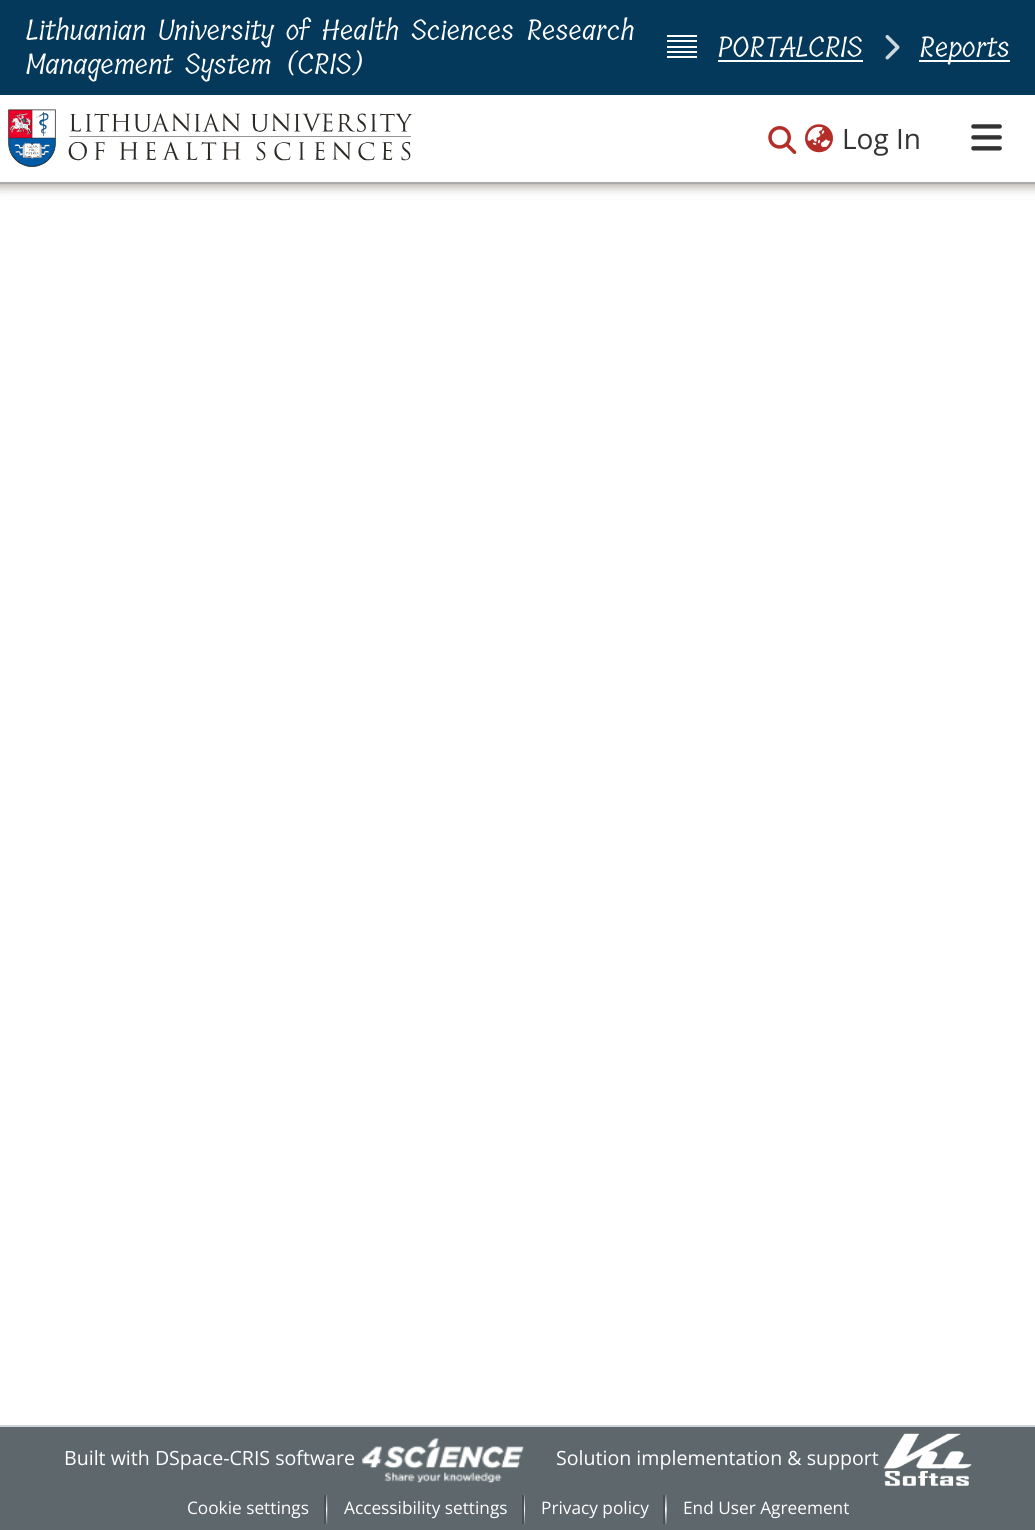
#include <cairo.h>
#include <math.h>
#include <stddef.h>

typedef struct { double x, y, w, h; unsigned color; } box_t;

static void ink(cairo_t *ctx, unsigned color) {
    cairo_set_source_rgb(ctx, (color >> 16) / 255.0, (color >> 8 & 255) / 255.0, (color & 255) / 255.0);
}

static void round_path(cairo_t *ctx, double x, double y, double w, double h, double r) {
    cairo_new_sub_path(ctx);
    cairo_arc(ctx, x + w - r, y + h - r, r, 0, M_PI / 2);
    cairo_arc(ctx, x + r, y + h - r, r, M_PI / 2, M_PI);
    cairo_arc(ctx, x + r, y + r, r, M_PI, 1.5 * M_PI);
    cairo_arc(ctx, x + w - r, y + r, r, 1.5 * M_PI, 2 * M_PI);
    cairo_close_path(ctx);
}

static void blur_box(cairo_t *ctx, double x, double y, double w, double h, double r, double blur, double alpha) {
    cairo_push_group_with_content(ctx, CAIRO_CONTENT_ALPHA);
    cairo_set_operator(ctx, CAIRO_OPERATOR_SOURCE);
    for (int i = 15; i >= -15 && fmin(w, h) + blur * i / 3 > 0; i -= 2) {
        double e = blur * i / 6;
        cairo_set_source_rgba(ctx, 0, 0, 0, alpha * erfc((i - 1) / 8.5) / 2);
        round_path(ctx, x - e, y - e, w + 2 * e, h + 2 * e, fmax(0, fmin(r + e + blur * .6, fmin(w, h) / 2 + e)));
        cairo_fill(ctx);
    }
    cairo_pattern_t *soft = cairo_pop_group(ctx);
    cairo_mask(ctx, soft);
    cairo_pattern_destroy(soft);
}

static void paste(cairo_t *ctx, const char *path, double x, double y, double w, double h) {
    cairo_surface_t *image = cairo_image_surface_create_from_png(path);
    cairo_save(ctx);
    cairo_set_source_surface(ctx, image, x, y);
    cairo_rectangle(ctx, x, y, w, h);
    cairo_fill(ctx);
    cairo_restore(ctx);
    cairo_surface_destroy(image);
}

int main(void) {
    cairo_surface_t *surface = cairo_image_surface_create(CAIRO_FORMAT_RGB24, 1035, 1530);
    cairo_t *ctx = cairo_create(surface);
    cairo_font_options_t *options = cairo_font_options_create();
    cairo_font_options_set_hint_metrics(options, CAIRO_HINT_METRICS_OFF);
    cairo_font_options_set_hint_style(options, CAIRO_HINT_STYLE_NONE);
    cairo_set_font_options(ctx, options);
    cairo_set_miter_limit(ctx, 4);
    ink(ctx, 0xFFFFFF);
    cairo_paint(ctx);
    cairo_save(ctx);
    cairo_set_fill_rule(ctx, CAIRO_FILL_RULE_EVEN_ODD);
    cairo_new_path(ctx);
    cairo_move_to(ctx, 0, 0);
    cairo_line_to(ctx, 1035, 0);
    cairo_line_to(ctx, 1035, 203);
    cairo_line_to(ctx, 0, 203);
    cairo_close_path(ctx);
    cairo_move_to(ctx, 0, 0);
    cairo_line_to(ctx, 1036, 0);
    cairo_line_to(ctx, 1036, 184);
    cairo_line_to(ctx, 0, 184);
    cairo_close_path(ctx);
    cairo_clip(ctx);
    ink(ctx, 0x685744);
    blur_box(ctx, -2, 0, 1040, 187, 0, 5, 0.5);
    cairo_restore(ctx);
    cairo_set_source_rgba(ctx, 0.333, 0.333, 0.333, 0.5);
    cairo_rectangle(ctx, 0, 182, 1035, 2);
    cairo_fill(ctx);
    ink(ctx, 0x04395B);
    cairo_rectangle(ctx, 0, 0, 1035, 95);
    cairo_fill(ctx);
    cairo_select_font_face(ctx, "Tillana", CAIRO_FONT_SLANT_NORMAL, CAIRO_FONT_WEIGHT_NORMAL);
    cairo_set_font_size(ctx, 28);
    ink(ctx, 0xFFFFFF);
    cairo_move_to(ctx, 26, 40);
    cairo_show_text(ctx, "Lithuanian University of Health Sciences Research");
    cairo_move_to(ctx, 26, 74);
    cairo_show_text(ctx, "Management System (CRIS)");
    {
        static const box_t items[] = {
            {667, 35, 30, 2, 0xFFFFFF},
            {667, 40, 30, 2, 0xFFFFFF},
            {667, 46, 30, 2, 0xFFFFFF},
            {667, 51, 30, 2, 0xFFFFFF},
            {667, 56, 30, 2, 0xFFFFFF},
        };
        for (size_t i = 0; i < sizeof items / sizeof *items; i++) {
            ink(ctx, items[i].color);
            cairo_rectangle(ctx, items[i].x, items[i].y, items[i].w, items[i].h);
            cairo_fill(ctx);
        }
    }
    cairo_move_to(ctx, 717, 57);
    cairo_show_text(ctx, "PORTALCRIS");
    cairo_rectangle(ctx, 718, 60, 145, 2);
    cairo_fill(ctx);
    paste(ctx, "media/1.png", 885, 35, 15, 25);
    cairo_rectangle(ctx, 919, 60, 91, 2);
    cairo_fill(ctx);
    cairo_move_to(ctx, 919, 57);
    cairo_show_text(ctx, "Reports");
    paste(ctx, "media/2.png", 8, 109, 405, 58);
    paste(ctx, "media/3.png", 768, 126, 29, 28);
    paste(ctx, "media/4.png", 805, 124, 28, 29);
    cairo_select_font_face(ctx, "Open Sans", CAIRO_FONT_SLANT_NORMAL, CAIRO_FONT_WEIGHT_NORMAL);
    ink(ctx, 0x333333);
    cairo_move_to(ctx, 842, 149);
    cairo_show_text(ctx, "Log In");
    paste(ctx, "media/5.png", 971, 124, 31, 27);
    ink(ctx, 0x5D676C);
    cairo_rectangle(ctx, 0, 1427, 1035, 103);
    cairo_fill(ctx);
    ink(ctx, 0xCED4DA);
    cairo_rectangle(ctx, 0, 1425, 1035, 2);
    cairo_fill(ctx);
    cairo_set_font_size(ctx, 19.6);
    ink(ctx, 0xFFFFFF);
    cairo_move_to(ctx, 64, 1465);
    cairo_show_text(ctx, "Built with DSpace-CRIS software");
    paste(ctx, "media/6.png", 362, 1438, 162, 45);
    cairo_move_to(ctx, 556, 1465);
    cairo_show_text(ctx, "Solution implementation & support");
    paste(ctx, "media/7.png", 883, 1433, 89, 53);
    paste(ctx, "media/8.png", 325, 1494, 3, 31);
    cairo_set_font_size(ctx, 17.25);
    cairo_move_to(ctx, 187, 1514);
    cairo_show_text(ctx, "Cookie settings");
    ink(ctx, 0x495057);
    cairo_rectangle(ctx, 324, 1495, 2, 29);
    cairo_fill(ctx);
    paste(ctx, "media/9.png", 523, 1494, 2, 31);
    ink(ctx, 0xFFFFFF);
    cairo_move_to(ctx, 344, 1514);
    cairo_show_text(ctx, "Accessibility settings");
    ink(ctx, 0x495057);
    cairo_rectangle(ctx, 522, 1495, 2, 29);
    cairo_fill(ctx);
    paste(ctx, "media/10.png", 665, 1494, 2, 31);
    ink(ctx, 0xFFFFFF);
    cairo_move_to(ctx, 541, 1514);
    cairo_show_text(ctx, "Privacy policy");
    ink(ctx, 0x495057);
    cairo_rectangle(ctx, 663, 1495, 2, 29);
    cairo_fill(ctx);
    ink(ctx, 0xFFFFFF);
    cairo_move_to(ctx, 683, 1514);
    cairo_show_text(ctx, "End User Agreement");
    cairo_surface_write_to_png(surface, "image.png");
    cairo_font_options_destroy(options);
    cairo_destroy(ctx);
    cairo_surface_destroy(surface);
    return 0;
}
